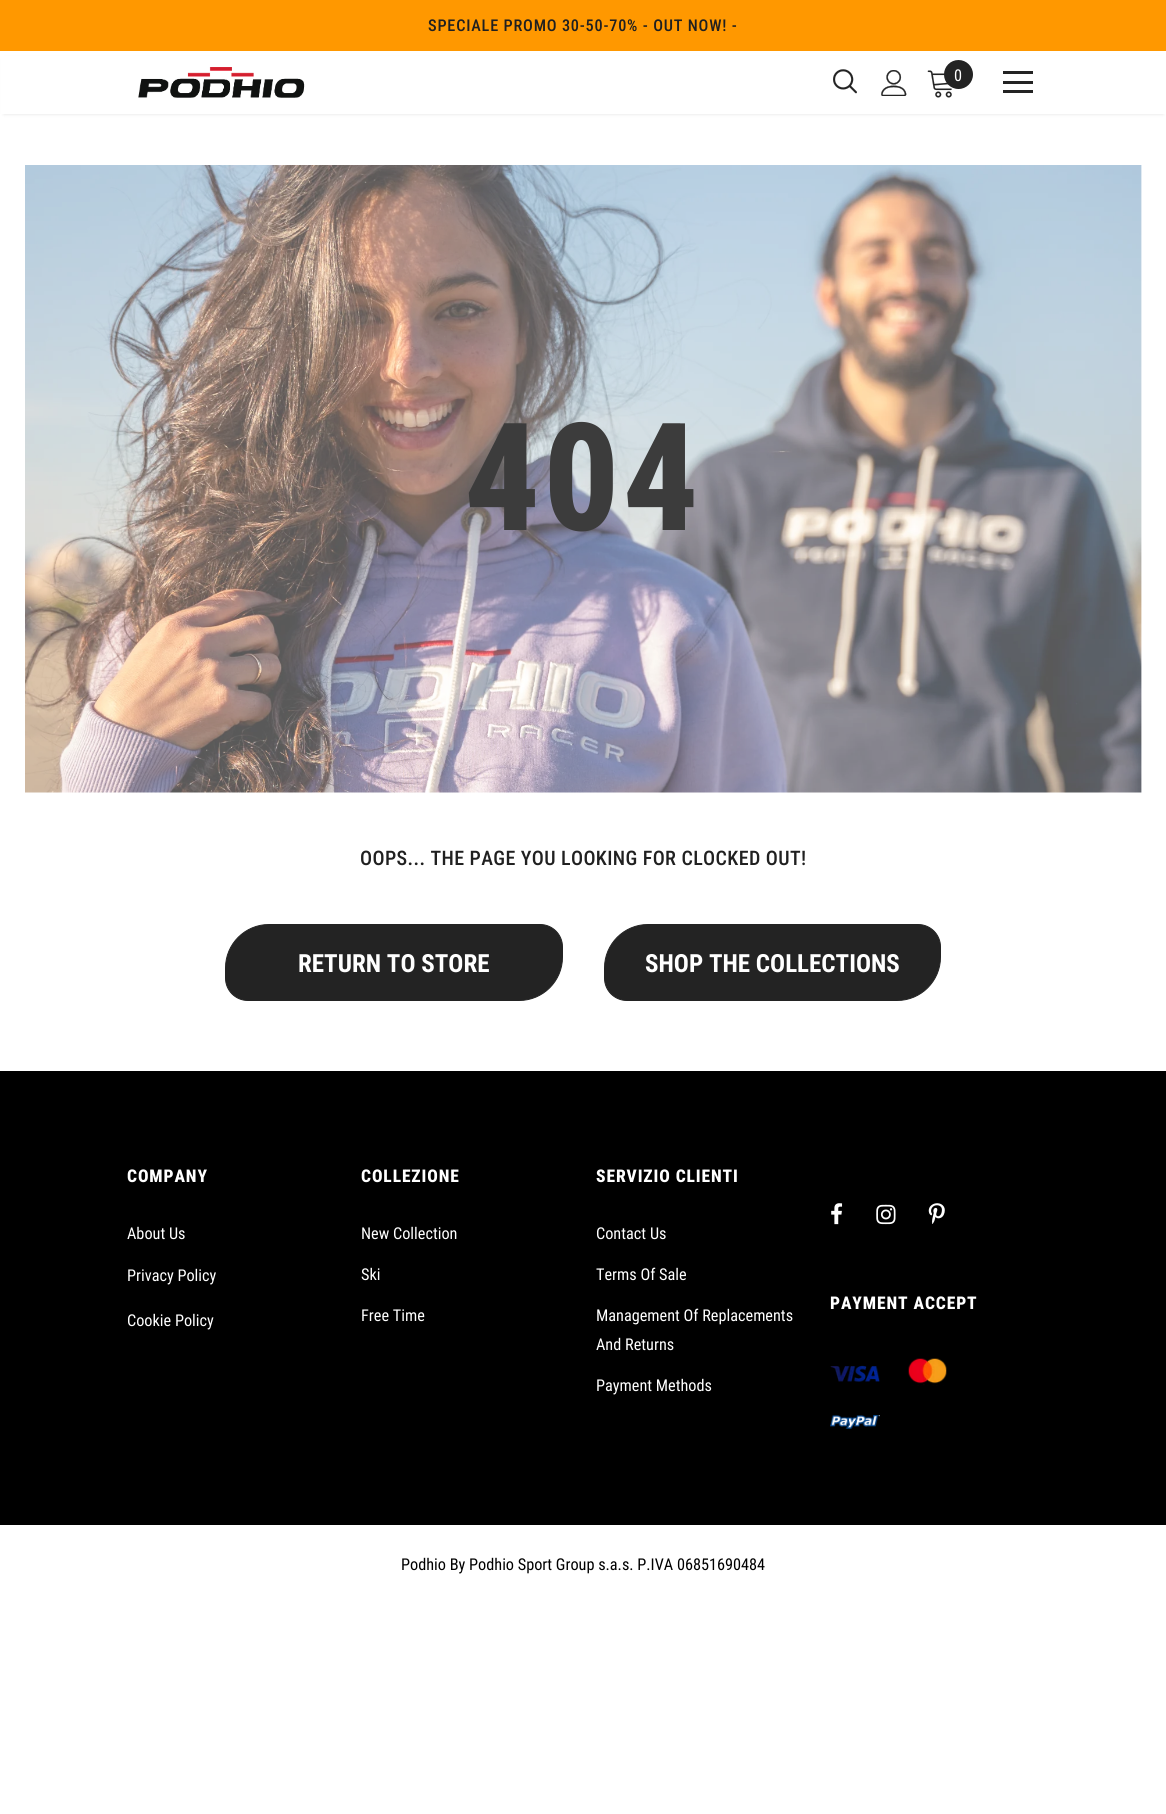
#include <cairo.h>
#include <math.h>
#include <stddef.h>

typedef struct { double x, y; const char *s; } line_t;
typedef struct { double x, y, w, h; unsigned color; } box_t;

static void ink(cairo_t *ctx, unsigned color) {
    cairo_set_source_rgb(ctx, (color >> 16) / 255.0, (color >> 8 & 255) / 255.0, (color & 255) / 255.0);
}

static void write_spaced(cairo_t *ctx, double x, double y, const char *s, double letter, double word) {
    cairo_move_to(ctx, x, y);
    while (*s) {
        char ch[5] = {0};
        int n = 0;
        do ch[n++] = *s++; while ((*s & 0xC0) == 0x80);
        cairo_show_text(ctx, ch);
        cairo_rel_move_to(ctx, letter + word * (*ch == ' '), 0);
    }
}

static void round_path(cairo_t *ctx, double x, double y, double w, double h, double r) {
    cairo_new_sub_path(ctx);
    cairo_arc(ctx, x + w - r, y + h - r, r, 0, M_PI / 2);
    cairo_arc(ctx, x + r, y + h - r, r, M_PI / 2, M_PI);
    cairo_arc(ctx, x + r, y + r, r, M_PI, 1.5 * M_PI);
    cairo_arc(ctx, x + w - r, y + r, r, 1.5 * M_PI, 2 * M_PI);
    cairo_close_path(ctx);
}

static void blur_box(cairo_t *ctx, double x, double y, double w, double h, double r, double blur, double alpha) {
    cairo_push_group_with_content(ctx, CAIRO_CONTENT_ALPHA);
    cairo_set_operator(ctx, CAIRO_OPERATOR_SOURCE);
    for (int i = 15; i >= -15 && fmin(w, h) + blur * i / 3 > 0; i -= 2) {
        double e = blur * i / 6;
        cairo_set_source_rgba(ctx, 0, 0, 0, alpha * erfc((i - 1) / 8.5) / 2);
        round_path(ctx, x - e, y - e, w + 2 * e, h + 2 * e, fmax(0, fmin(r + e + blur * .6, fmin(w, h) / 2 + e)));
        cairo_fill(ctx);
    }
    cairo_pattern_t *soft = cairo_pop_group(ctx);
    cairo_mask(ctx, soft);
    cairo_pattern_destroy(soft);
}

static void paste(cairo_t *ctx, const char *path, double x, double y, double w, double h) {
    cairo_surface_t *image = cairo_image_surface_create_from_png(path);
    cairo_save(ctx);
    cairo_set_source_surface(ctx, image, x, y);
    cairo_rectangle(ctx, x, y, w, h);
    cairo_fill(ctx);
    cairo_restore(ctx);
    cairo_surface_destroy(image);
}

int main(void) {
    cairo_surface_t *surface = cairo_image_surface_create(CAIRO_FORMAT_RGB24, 1166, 1814);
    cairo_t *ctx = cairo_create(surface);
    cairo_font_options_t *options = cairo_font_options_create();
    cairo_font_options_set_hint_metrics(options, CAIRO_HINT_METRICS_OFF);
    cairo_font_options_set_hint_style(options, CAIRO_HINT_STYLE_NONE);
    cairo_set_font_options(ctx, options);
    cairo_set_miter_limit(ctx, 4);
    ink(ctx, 0xFFFFFF);
    cairo_paint(ctx);
    ink(ctx, 0xFF9800);
    cairo_rectangle(ctx, 0, 0, 1166, 51);
    cairo_fill(ctx);
    cairo_select_font_face(ctx, "Roboto Condensed Medium", CAIRO_FONT_SLANT_NORMAL, CAIRO_FONT_WEIGHT_NORMAL);
    cairo_set_font_size(ctx, 16.25);
    ink(ctx, 0x202020);
    write_spaced(ctx, 428, 31, "SPECIALE PROMO 30-50-70% - OUT NOW! -", 0.8, 0);
    ink(ctx, 0x000000);
    blur_box(ctx, 4, 59, 1159, 55, 0, 2, 0.12);
    ink(ctx, 0xFFFFFF);
    cairo_rectangle(ctx, 1, 56, 1165, 58);
    cairo_fill(ctx);
    paste(ctx, "media/1.png", 138, 67, 167, 31);
    paste(ctx, "media/2.png", 833, 69, 24, 25);
    paste(ctx, "media/3.png", 881, 70, 26, 26);
    paste(ctx, "media/4.png", 927, 70, 25, 28);
    ink(ctx, 0x232323);
    cairo_arc(ctx, 958.5, 74.5, 14.5, 0, 2 * M_PI);
    cairo_fill(ctx);
    cairo_select_font_face(ctx, "Roboto Condensed", CAIRO_FONT_SLANT_NORMAL, CAIRO_FONT_WEIGHT_NORMAL);
    ink(ctx, 0xFFFFFF);
    cairo_move_to(ctx, 954, 81);
    cairo_show_text(ctx, "0");
    {
        static const box_t items[] = {
            {1003, 71, 30, 3, 0x232323},
            {1003, 81, 30, 3, 0x232323},
            {1003, 90, 30, 3, 0x232323},
        };
        for (size_t i = 0; i < sizeof items / sizeof *items; i++) {
            ink(ctx, items[i].color);
            cairo_rectangle(ctx, items[i].x, items[i].y, items[i].w, items[i].h);
            cairo_fill(ctx);
        }
    }
    paste(ctx, "media/5.png", 25, 165, 1117, 628);
    cairo_select_font_face(ctx, "Roboto Condensed ExtraBold", CAIRO_FONT_SLANT_NORMAL, CAIRO_FONT_WEIGHT_NORMAL);
    cairo_set_font_size(ctx, 150);
    ink(ctx, 0x3C3C3C);
    write_spaced(ctx, 464, 530, "404", 3, 0);
    cairo_select_font_face(ctx, "Roboto Condensed Medium", CAIRO_FONT_SLANT_NORMAL, CAIRO_FONT_WEIGHT_NORMAL);
    cairo_set_font_size(ctx, 20);
    ink(ctx, 0x202020);
    write_spaced(ctx, 360, 865, "OOPS... THE PAGE YOU LOOKING FOR CLOCKED OUT!", 0.4, 0);
    ink(ctx, 0x232323);
    cairo_new_path(ctx);
    cairo_move_to(ctx, 269, 924.5);
    cairo_line_to(ctx, 540, 924.5);
    cairo_curve_to(ctx, 552.5, 924.5, 562.5, 934.5, 562.5, 947);
    cairo_line_to(ctx, 562.5, 957);
    cairo_curve_to(ctx, 562.5, 981, 543, 1000.5, 519, 1000.5);
    cairo_line_to(ctx, 248, 1000.5);
    cairo_curve_to(ctx, 235.5, 1000.5, 225.5, 990.5, 225.5, 978);
    cairo_line_to(ctx, 225.5, 968);
    cairo_curve_to(ctx, 225.5, 944, 245, 924.5, 269, 924.5);
    cairo_close_path(ctx);
    cairo_fill_preserve(ctx);
    cairo_set_line_width(ctx, 1);
    cairo_stroke(ctx);
    cairo_select_font_face(ctx, "Roboto Condensed", CAIRO_FONT_SLANT_NORMAL, CAIRO_FONT_WEIGHT_BOLD);
    cairo_set_font_size(ctx, 25);
    ink(ctx, 0xFFFFFF);
    cairo_move_to(ctx, 298, 972);
    cairo_show_text(ctx, "RETURN TO STORE");
    ink(ctx, 0x232323);
    cairo_new_path(ctx);
    cairo_move_to(ctx, 648, 924.5);
    cairo_line_to(ctx, 918, 924.5);
    cairo_curve_to(ctx, 930.5, 924.5, 940.5, 934.5, 940.5, 947);
    cairo_line_to(ctx, 940.5, 957);
    cairo_curve_to(ctx, 940.5, 981, 921, 1000.5, 897, 1000.5);
    cairo_line_to(ctx, 627, 1000.5);
    cairo_curve_to(ctx, 614.5, 1000.5, 604.5, 990.5, 604.5, 978);
    cairo_line_to(ctx, 604.5, 968);
    cairo_curve_to(ctx, 604.5, 944, 624, 924.5, 648, 924.5);
    cairo_close_path(ctx);
    cairo_fill_preserve(ctx);
    cairo_stroke(ctx);
    ink(ctx, 0xFFFFFF);
    cairo_move_to(ctx, 645, 972);
    cairo_show_text(ctx, "SHOP THE COLLECTIONS");
    ink(ctx, 0x000000);
    cairo_rectangle(ctx, 0, 1071, 1166, 454);
    cairo_fill(ctx);
    cairo_select_font_face(ctx, "Roboto Condensed ExtraBold", CAIRO_FONT_SLANT_NORMAL, CAIRO_FONT_WEIGHT_NORMAL);
    cairo_set_font_size(ctx, 17.5);
    ink(ctx, 0xFFFFFF);
    write_spaced(ctx, 127, 1182, "COMPANY", 0.9, 0);
    cairo_select_font_face(ctx, "Roboto Condensed", CAIRO_FONT_SLANT_NORMAL, CAIRO_FONT_WEIGHT_NORMAL);
    cairo_set_font_size(ctx, 16.25);
    {
        static const line_t items[] = {
            {127, 1239, "About Us"},
            {127, 1281, "Privacy Policy"},
            {127, 1326, "Cookie Policy"},
        };
        for (size_t i = 0; i < sizeof items / sizeof *items; i++) {
            cairo_move_to(ctx, items[i].x, items[i].y);
            cairo_show_text(ctx, items[i].s);
        }
    }
    cairo_select_font_face(ctx, "Roboto Condensed ExtraBold", CAIRO_FONT_SLANT_NORMAL, CAIRO_FONT_WEIGHT_NORMAL);
    cairo_set_font_size(ctx, 17.5);
    write_spaced(ctx, 361, 1182, "COLLEZIONE", 0.9, 0);
    cairo_select_font_face(ctx, "Roboto Condensed", CAIRO_FONT_SLANT_NORMAL, CAIRO_FONT_WEIGHT_NORMAL);
    cairo_set_font_size(ctx, 16.25);
    {
        static const line_t items[] = {
            {361, 1239, "New Collection"},
            {361, 1280, "Ski"},
            {361, 1321, "Free Time"},
        };
        for (size_t i = 0; i < sizeof items / sizeof *items; i++) {
            cairo_move_to(ctx, items[i].x, items[i].y);
            cairo_show_text(ctx, items[i].s);
        }
    }
    cairo_select_font_face(ctx, "Roboto Condensed ExtraBold", CAIRO_FONT_SLANT_NORMAL, CAIRO_FONT_WEIGHT_NORMAL);
    cairo_set_font_size(ctx, 17.5);
    write_spaced(ctx, 596, 1182, "SERVIZIO CLIENTI", 0.9, 0);
    cairo_select_font_face(ctx, "Roboto Condensed", CAIRO_FONT_SLANT_NORMAL, CAIRO_FONT_WEIGHT_NORMAL);
    cairo_set_font_size(ctx, 16.25);
    {
        static const line_t items[] = {
            {596, 1239, "Contact Us"},
            {596, 1280, "Terms Of Sale"},
            {596, 1321, "Management Of Replacements"},
            {596, 1350, "And Returns"},
            {596, 1391, "Payment Methods"},
        };
        for (size_t i = 0; i < sizeof items / sizeof *items; i++) {
            cairo_move_to(ctx, items[i].x, items[i].y);
            cairo_show_text(ctx, items[i].s);
        }
    }
    paste(ctx, "media/6.png", 831, 1203, 12, 22);
    paste(ctx, "media/7.png", 876, 1204, 20, 21);
    paste(ctx, "media/8.png", 928, 1203, 17, 21);
    cairo_select_font_face(ctx, "Roboto Condensed ExtraBold", CAIRO_FONT_SLANT_NORMAL, CAIRO_FONT_WEIGHT_NORMAL);
    cairo_set_font_size(ctx, 17.5);
    write_spaced(ctx, 830, 1309, "PAYMENT ACCEPT", 0.9, 0);
    paste(ctx, "media/9.png", 830, 1365, 50, 17);
    paste(ctx, "media/10.png", 908, 1358, 39, 28);
    paste(ctx, "media/11.png", 830, 1415, 50, 14);
    cairo_select_font_face(ctx, "Roboto Condensed", CAIRO_FONT_SLANT_NORMAL, CAIRO_FONT_WEIGHT_NORMAL);
    cairo_set_font_size(ctx, 16.25);
    ink(ctx, 0x000000);
    cairo_move_to(ctx, 401, 1570);
    cairo_show_text(ctx, "Podhio By Podhio Sport Group s.a.s. P.IVA 06851690484");
    cairo_surface_write_to_png(surface, "image.png");
    cairo_font_options_destroy(options);
    cairo_destroy(ctx);
    cairo_surface_destroy(surface);
    return 0;
}
